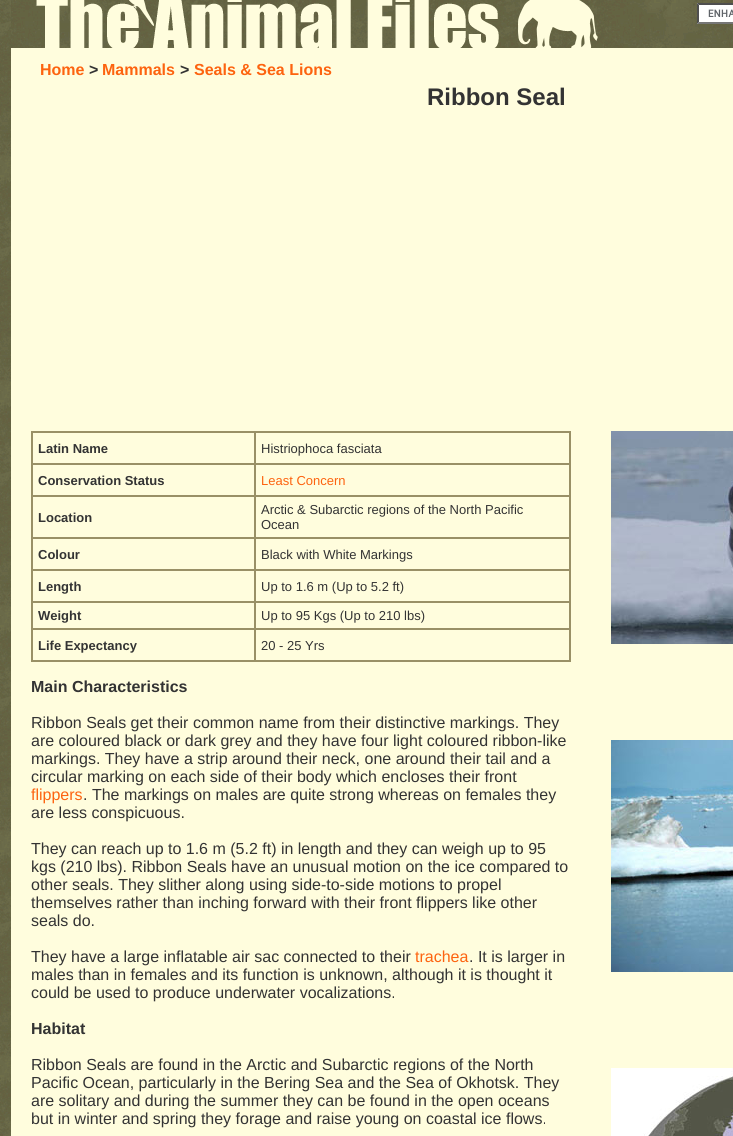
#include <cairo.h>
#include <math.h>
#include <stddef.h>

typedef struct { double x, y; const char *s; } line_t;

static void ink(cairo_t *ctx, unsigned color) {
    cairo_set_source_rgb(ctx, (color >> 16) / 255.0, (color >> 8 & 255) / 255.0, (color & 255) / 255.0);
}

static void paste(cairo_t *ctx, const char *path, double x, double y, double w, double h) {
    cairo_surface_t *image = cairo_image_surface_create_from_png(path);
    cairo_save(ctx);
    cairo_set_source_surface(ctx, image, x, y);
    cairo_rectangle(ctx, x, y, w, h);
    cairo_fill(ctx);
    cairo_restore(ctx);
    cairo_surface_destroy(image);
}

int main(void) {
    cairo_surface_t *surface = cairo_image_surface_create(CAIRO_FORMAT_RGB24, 733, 1136);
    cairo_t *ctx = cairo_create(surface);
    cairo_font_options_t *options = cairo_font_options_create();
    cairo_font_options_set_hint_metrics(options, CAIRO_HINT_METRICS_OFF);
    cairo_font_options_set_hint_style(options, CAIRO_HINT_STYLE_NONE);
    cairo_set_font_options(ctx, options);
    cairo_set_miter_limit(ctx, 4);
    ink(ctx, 0xFFFFFF);
    cairo_paint(ctx);
    paste(ctx, "media/1.png", 0, 0, 11, 1136);
    paste(ctx, "media/2.png", 11, 0, 602, 59);
    paste(ctx, "media/3.png", 613, 0, 120, 59);
    ink(ctx, 0xFFFFFF);
    cairo_rectangle(ctx, 697, 3, 36, 21);
    cairo_fill(ctx);
    paste(ctx, "media/4.png", 708, 9, 25, 8);
    ink(ctx, 0x4F4F4F);
    cairo_new_path(ctx);
    cairo_move_to(ctx, 697, 3);
    cairo_line_to(ctx, 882, 3);
    cairo_line_to(ctx, 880, 5);
    cairo_line_to(ctx, 699, 5);
    cairo_close_path(ctx);
    cairo_fill(ctx);
    ink(ctx, 0x767676);
    cairo_new_path(ctx);
    cairo_move_to(ctx, 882, 24);
    cairo_line_to(ctx, 697, 24);
    cairo_line_to(ctx, 699, 22);
    cairo_line_to(ctx, 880, 22);
    cairo_close_path(ctx);
    cairo_fill(ctx);
    ink(ctx, 0x4F4F4F);
    cairo_new_path(ctx);
    cairo_move_to(ctx, 697, 24);
    cairo_line_to(ctx, 697, 3);
    cairo_line_to(ctx, 699, 5);
    cairo_line_to(ctx, 699, 22);
    cairo_close_path(ctx);
    cairo_fill(ctx);
    ink(ctx, 0xFFFDDD);
    cairo_rectangle(ctx, 11, 59, 722, 1077);
    cairo_fill(ctx);
    cairo_select_font_face(ctx, "Liberation Sans", CAIRO_FONT_SLANT_NORMAL, CAIRO_FONT_WEIGHT_BOLD);
    cairo_set_font_size(ctx, 16);
    ink(ctx, 0xFD630F);
    cairo_move_to(ctx, 40, 75);
    cairo_show_text(ctx, "Home");
    ink(ctx, 0x333333);
    cairo_move_to(ctx, 89, 75);
    cairo_show_text(ctx, ">");
    ink(ctx, 0xFD630F);
    cairo_move_to(ctx, 102, 75);
    cairo_show_text(ctx, "Mammals");
    ink(ctx, 0x333333);
    cairo_move_to(ctx, 180, 75);
    cairo_show_text(ctx, ">");
    ink(ctx, 0xFD630F);
    cairo_move_to(ctx, 194, 75);
    cairo_show_text(ctx, "Seals & Sea Lions");
    cairo_set_font_size(ctx, 24);
    ink(ctx, 0x333333);
    cairo_move_to(ctx, 427, 105);
    cairo_show_text(ctx, "Ribbon Seal");
    cairo_rectangle(ctx, 31.5, 431.5, 539, 230);
    ink(ctx, 0x999066);
    cairo_set_line_width(ctx, 1);
    cairo_stroke(ctx);
    cairo_rectangle(ctx, 32.5, 432.5, 222, 31);
    cairo_stroke(ctx);
    cairo_set_font_size(ctx, 13);
    ink(ctx, 0x333333);
    cairo_move_to(ctx, 38, 453);
    cairo_show_text(ctx, "Latin Name");
    cairo_rectangle(ctx, 255.5, 432.5, 314, 31);
    ink(ctx, 0x999066);
    cairo_stroke(ctx);
    cairo_select_font_face(ctx, "Liberation Sans", CAIRO_FONT_SLANT_NORMAL, CAIRO_FONT_WEIGHT_NORMAL);
    ink(ctx, 0x333333);
    cairo_move_to(ctx, 261, 453);
    cairo_show_text(ctx, "Histriophoca fasciata");
    cairo_rectangle(ctx, 32.5, 464.5, 222, 31);
    ink(ctx, 0x999066);
    cairo_stroke(ctx);
    cairo_select_font_face(ctx, "Liberation Sans", CAIRO_FONT_SLANT_NORMAL, CAIRO_FONT_WEIGHT_BOLD);
    ink(ctx, 0x333333);
    cairo_move_to(ctx, 38, 485);
    cairo_show_text(ctx, "Conservation Status");
    cairo_rectangle(ctx, 255.5, 464.5, 314, 31);
    ink(ctx, 0x999066);
    cairo_stroke(ctx);
    cairo_select_font_face(ctx, "Liberation Sans", CAIRO_FONT_SLANT_NORMAL, CAIRO_FONT_WEIGHT_NORMAL);
    ink(ctx, 0xFD630F);
    cairo_move_to(ctx, 261, 485);
    cairo_show_text(ctx, "Least Concern");
    cairo_rectangle(ctx, 32.5, 496.5, 222, 41);
    ink(ctx, 0x999066);
    cairo_stroke(ctx);
    cairo_select_font_face(ctx, "Liberation Sans", CAIRO_FONT_SLANT_NORMAL, CAIRO_FONT_WEIGHT_BOLD);
    ink(ctx, 0x333333);
    cairo_move_to(ctx, 38, 522);
    cairo_show_text(ctx, "Location");
    cairo_rectangle(ctx, 255.5, 496.5, 314, 41);
    ink(ctx, 0x999066);
    cairo_stroke(ctx);
    cairo_select_font_face(ctx, "Liberation Sans", CAIRO_FONT_SLANT_NORMAL, CAIRO_FONT_WEIGHT_NORMAL);
    ink(ctx, 0x333333);
    cairo_move_to(ctx, 261, 514);
    cairo_show_text(ctx, "Arctic & Subarctic regions of the North Pacific");
    cairo_move_to(ctx, 261, 529);
    cairo_show_text(ctx, "Ocean");
    cairo_rectangle(ctx, 32.5, 538.5, 222, 31);
    ink(ctx, 0x999066);
    cairo_stroke(ctx);
    cairo_select_font_face(ctx, "Liberation Sans", CAIRO_FONT_SLANT_NORMAL, CAIRO_FONT_WEIGHT_BOLD);
    ink(ctx, 0x333333);
    cairo_move_to(ctx, 38, 559);
    cairo_show_text(ctx, "Colour");
    cairo_rectangle(ctx, 255.5, 538.5, 314, 31);
    ink(ctx, 0x999066);
    cairo_stroke(ctx);
    cairo_select_font_face(ctx, "Liberation Sans", CAIRO_FONT_SLANT_NORMAL, CAIRO_FONT_WEIGHT_NORMAL);
    ink(ctx, 0x333333);
    cairo_move_to(ctx, 261, 559);
    cairo_show_text(ctx, "Black with White Markings");
    cairo_rectangle(ctx, 32.5, 570.5, 222, 31);
    ink(ctx, 0x999066);
    cairo_stroke(ctx);
    cairo_select_font_face(ctx, "Liberation Sans", CAIRO_FONT_SLANT_NORMAL, CAIRO_FONT_WEIGHT_BOLD);
    ink(ctx, 0x333333);
    cairo_move_to(ctx, 38, 591);
    cairo_show_text(ctx, "Length");
    cairo_rectangle(ctx, 255.5, 570.5, 314, 31);
    ink(ctx, 0x999066);
    cairo_stroke(ctx);
    cairo_select_font_face(ctx, "Liberation Sans", CAIRO_FONT_SLANT_NORMAL, CAIRO_FONT_WEIGHT_NORMAL);
    ink(ctx, 0x333333);
    cairo_move_to(ctx, 261, 591);
    cairo_show_text(ctx, "Up to 1.6 m (Up to 5.2 ft)");
    cairo_rectangle(ctx, 32.5, 602.5, 222, 26);
    ink(ctx, 0x999066);
    cairo_stroke(ctx);
    cairo_select_font_face(ctx, "Liberation Sans", CAIRO_FONT_SLANT_NORMAL, CAIRO_FONT_WEIGHT_BOLD);
    ink(ctx, 0x333333);
    cairo_move_to(ctx, 38, 620);
    cairo_show_text(ctx, "Weight");
    cairo_rectangle(ctx, 255.5, 602.5, 314, 26);
    ink(ctx, 0x999066);
    cairo_stroke(ctx);
    cairo_select_font_face(ctx, "Liberation Sans", CAIRO_FONT_SLANT_NORMAL, CAIRO_FONT_WEIGHT_NORMAL);
    ink(ctx, 0x333333);
    cairo_move_to(ctx, 261, 620);
    cairo_show_text(ctx, "Up to 95 Kgs (Up to 210 lbs)");
    cairo_rectangle(ctx, 32.5, 629.5, 222, 31);
    ink(ctx, 0x999066);
    cairo_stroke(ctx);
    cairo_select_font_face(ctx, "Liberation Sans", CAIRO_FONT_SLANT_NORMAL, CAIRO_FONT_WEIGHT_BOLD);
    ink(ctx, 0x333333);
    cairo_move_to(ctx, 38, 650);
    cairo_show_text(ctx, "Life Expectancy");
    cairo_rectangle(ctx, 255.5, 629.5, 314, 31);
    ink(ctx, 0x999066);
    cairo_stroke(ctx);
    cairo_select_font_face(ctx, "Liberation Sans", CAIRO_FONT_SLANT_NORMAL, CAIRO_FONT_WEIGHT_NORMAL);
    ink(ctx, 0x333333);
    cairo_move_to(ctx, 261, 650);
    cairo_show_text(ctx, "20 - 25 Yrs");
    cairo_select_font_face(ctx, "Liberation Sans", CAIRO_FONT_SLANT_NORMAL, CAIRO_FONT_WEIGHT_BOLD);
    cairo_set_font_size(ctx, 16);
    cairo_move_to(ctx, 31, 692);
    cairo_show_text(ctx, "Main Characteristics");
    cairo_select_font_face(ctx, "Liberation Sans", CAIRO_FONT_SLANT_NORMAL, CAIRO_FONT_WEIGHT_NORMAL);
    {
        static const line_t items[] = {
            {31, 728, "Ribbon Seals get their common name from their distinctive markings. They"},
            {31, 746, "are coloured black or dark grey and they have four light coloured ribbon-like"},
            {31, 764, "markings. They have a strip around their neck, one around their tail and a"},
            {31, 782, "circular marking on each side of their body which encloses their front"},
        };
        for (size_t i = 0; i < sizeof items / sizeof *items; i++) {
            cairo_move_to(ctx, items[i].x, items[i].y);
            cairo_show_text(ctx, items[i].s);
        }
    }
    ink(ctx, 0xFD630F);
    cairo_move_to(ctx, 31, 800);
    cairo_show_text(ctx, "flippers");
    ink(ctx, 0x333333);
    {
        static const line_t items[] = {
            {83, 800, ". The markings on males are quite strong whereas on females they"},
            {31, 818, "are less conspicuous."},
            {31, 854, "They can reach up to 1.6 m (5.2 ft) in length and they can weigh up to 95"},
            {31, 872, "kgs (210 lbs). Ribbon Seals have an unusual motion on the ice compared to"},
            {31, 890, "other seals. They slither along using side-to-side motions to propel"},
            {31, 908, "themselves rather than inching forward with their front flippers like other"},
            {31, 926, "seals do."},
            {31, 962, "They have a large inflatable air sac connected to their"},
        };
        for (size_t i = 0; i < sizeof items / sizeof *items; i++) {
            cairo_move_to(ctx, items[i].x, items[i].y);
            cairo_show_text(ctx, items[i].s);
        }
    }
    ink(ctx, 0xFD630F);
    cairo_move_to(ctx, 415, 962);
    cairo_show_text(ctx, "trachea");
    ink(ctx, 0x333333);
    {
        static const line_t items[] = {
            {469, 962, ". It is larger in"},
            {31, 980, "males than in females and its function is unknown, although it is thought it"},
            {31, 998, "could be used to produce underwater vocalizations."},
        };
        for (size_t i = 0; i < sizeof items / sizeof *items; i++) {
            cairo_move_to(ctx, items[i].x, items[i].y);
            cairo_show_text(ctx, items[i].s);
        }
    }
    cairo_select_font_face(ctx, "Liberation Sans", CAIRO_FONT_SLANT_NORMAL, CAIRO_FONT_WEIGHT_BOLD);
    cairo_move_to(ctx, 31, 1034);
    cairo_show_text(ctx, "Habitat");
    cairo_select_font_face(ctx, "Liberation Sans", CAIRO_FONT_SLANT_NORMAL, CAIRO_FONT_WEIGHT_NORMAL);
    {
        static const line_t items[] = {
            {31, 1070, "Ribbon Seals are found in the Arctic and Subarctic regions of the North"},
            {31, 1088, "Pacific Ocean, particularly in the Bering Sea and the Sea of Okhotsk. They"},
            {31, 1106, "are solitary and during the summer they can be found in the open oceans"},
            {31, 1124, "but in winter and spring they forage and raise young on coastal ice flows."},
        };
        for (size_t i = 0; i < sizeof items / sizeof *items; i++) {
            cairo_move_to(ctx, items[i].x, items[i].y);
            cairo_show_text(ctx, items[i].s);
        }
    }
    paste(ctx, "media/5.png", 611, 431, 122, 213);
    paste(ctx, "media/6.png", 611, 740, 122, 232);
    paste(ctx, "media/7.png", 611, 1068, 122, 68);
    cairo_surface_write_to_png(surface, "image.png");
    cairo_font_options_destroy(options);
    cairo_destroy(ctx);
    cairo_surface_destroy(surface);
    return 0;
}
